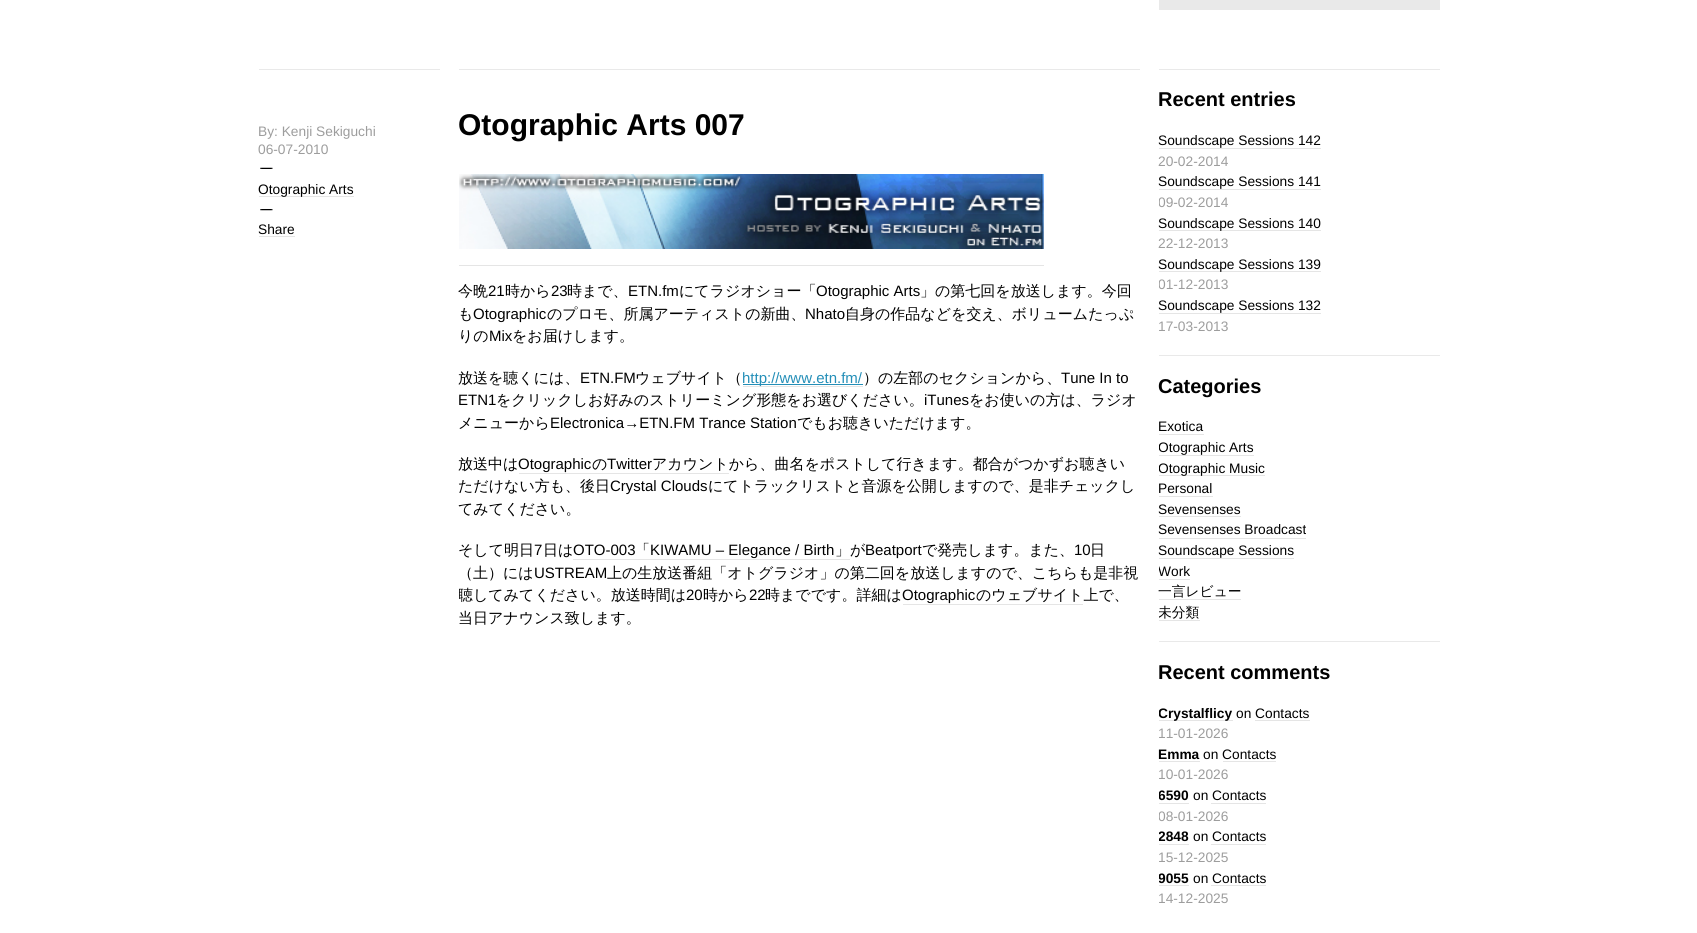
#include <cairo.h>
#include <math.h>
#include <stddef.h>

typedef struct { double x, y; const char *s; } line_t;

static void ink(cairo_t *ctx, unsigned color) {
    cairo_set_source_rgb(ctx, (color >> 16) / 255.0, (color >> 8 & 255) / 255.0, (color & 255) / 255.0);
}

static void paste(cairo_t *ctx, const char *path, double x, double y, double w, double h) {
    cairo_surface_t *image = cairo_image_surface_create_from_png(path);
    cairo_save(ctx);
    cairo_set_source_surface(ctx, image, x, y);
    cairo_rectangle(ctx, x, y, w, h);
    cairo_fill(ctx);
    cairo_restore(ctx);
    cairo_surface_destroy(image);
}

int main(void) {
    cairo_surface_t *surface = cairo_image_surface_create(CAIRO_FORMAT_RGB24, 1697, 933);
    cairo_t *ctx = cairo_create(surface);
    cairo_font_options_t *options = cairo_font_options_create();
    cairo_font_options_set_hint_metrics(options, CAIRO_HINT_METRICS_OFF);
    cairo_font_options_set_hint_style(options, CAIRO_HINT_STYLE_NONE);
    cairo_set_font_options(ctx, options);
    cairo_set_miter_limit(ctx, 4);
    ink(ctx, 0xFFFFFF);
    cairo_paint(ctx);
    ink(ctx, 0xE9E9E9);
    cairo_rectangle(ctx, 1159, 0, 281, 10);
    cairo_fill(ctx);
    cairo_rectangle(ctx, 259, 69, 181, 1);
    cairo_fill(ctx);
    cairo_select_font_face(ctx, "Liberation Sans", CAIRO_FONT_SLANT_NORMAL, CAIRO_FONT_WEIGHT_NORMAL);
    cairo_set_font_size(ctx, 13.75);
    ink(ctx, 0x9D9D9D);
    cairo_move_to(ctx, 258, 136);
    cairo_show_text(ctx, "By: Kenji Sekiguchi");
    paste(ctx, "media/1.png", 260, 167, 13, 2);
    cairo_move_to(ctx, 258, 154);
    cairo_show_text(ctx, "06-07-2010");
    ink(ctx, 0xE5E5E5);
    cairo_rectangle(ctx, 259, 196, 95, 1);
    cairo_fill(ctx);
    ink(ctx, 0x000000);
    cairo_move_to(ctx, 258, 194);
    cairo_show_text(ctx, "Otographic Arts");
    paste(ctx, "media/2.png", 260, 209, 13, 2);
    ink(ctx, 0xE5E5E5);
    cairo_rectangle(ctx, 259, 236, 36, 1);
    cairo_fill(ctx);
    ink(ctx, 0x000000);
    cairo_move_to(ctx, 258, 234);
    cairo_show_text(ctx, "Share");
    ink(ctx, 0xE9E9E9);
    cairo_rectangle(ctx, 459, 69, 681, 1);
    cairo_fill(ctx);
    cairo_select_font_face(ctx, "Liberation Sans", CAIRO_FONT_SLANT_NORMAL, CAIRO_FONT_WEIGHT_BOLD);
    cairo_set_font_size(ctx, 30);
    ink(ctx, 0x000000);
    cairo_move_to(ctx, 458, 135);
    cairo_show_text(ctx, "Otographic Arts 007");
    paste(ctx, "media/3.png", 459, 174, 585, 75);
    ink(ctx, 0xE5E5E5);
    cairo_rectangle(ctx, 459, 265, 585, 1);
    cairo_fill(ctx);
    cairo_select_font_face(ctx, "WenQuanYi Zen Hei Medium", CAIRO_FONT_SLANT_NORMAL, CAIRO_FONT_WEIGHT_NORMAL);
    cairo_set_font_size(ctx, 15);
    ink(ctx, 0x000000);
    cairo_move_to(ctx, 458, 296);
    cairo_show_text(ctx, "今晩");
    cairo_select_font_face(ctx, "Liberation Sans", CAIRO_FONT_SLANT_NORMAL, CAIRO_FONT_WEIGHT_NORMAL);
    cairo_move_to(ctx, 488, 296);
    cairo_show_text(ctx, "21");
    cairo_select_font_face(ctx, "WenQuanYi Zen Hei Medium", CAIRO_FONT_SLANT_NORMAL, CAIRO_FONT_WEIGHT_NORMAL);
    cairo_move_to(ctx, 505, 296);
    cairo_show_text(ctx, "時から");
    cairo_select_font_face(ctx, "Liberation Sans", CAIRO_FONT_SLANT_NORMAL, CAIRO_FONT_WEIGHT_NORMAL);
    cairo_move_to(ctx, 551, 296);
    cairo_show_text(ctx, "23");
    cairo_select_font_face(ctx, "WenQuanYi Zen Hei Medium", CAIRO_FONT_SLANT_NORMAL, CAIRO_FONT_WEIGHT_NORMAL);
    cairo_move_to(ctx, 567, 296);
    cairo_show_text(ctx, "時まで、");
    cairo_select_font_face(ctx, "Liberation Sans", CAIRO_FONT_SLANT_NORMAL, CAIRO_FONT_WEIGHT_NORMAL);
    cairo_move_to(ctx, 628, 296);
    cairo_show_text(ctx, "ETN.fm");
    cairo_select_font_face(ctx, "WenQuanYi Zen Hei Medium", CAIRO_FONT_SLANT_NORMAL, CAIRO_FONT_WEIGHT_NORMAL);
    cairo_move_to(ctx, 679, 296);
    cairo_show_text(ctx, "にてラジオショー「");
    cairo_select_font_face(ctx, "Liberation Sans", CAIRO_FONT_SLANT_NORMAL, CAIRO_FONT_WEIGHT_NORMAL);
    cairo_move_to(ctx, 816, 296);
    cairo_show_text(ctx, "Otographic Arts");
    cairo_select_font_face(ctx, "WenQuanYi Zen Hei Medium", CAIRO_FONT_SLANT_NORMAL, CAIRO_FONT_WEIGHT_NORMAL);
    cairo_move_to(ctx, 920, 296);
    cairo_show_text(ctx, "」の第七回を放送します。今回");
    cairo_move_to(ctx, 458, 319);
    cairo_show_text(ctx, "も");
    cairo_select_font_face(ctx, "Liberation Sans", CAIRO_FONT_SLANT_NORMAL, CAIRO_FONT_WEIGHT_NORMAL);
    cairo_move_to(ctx, 473, 319);
    cairo_show_text(ctx, "Otographic");
    cairo_select_font_face(ctx, "WenQuanYi Zen Hei Medium", CAIRO_FONT_SLANT_NORMAL, CAIRO_FONT_WEIGHT_NORMAL);
    cairo_move_to(ctx, 547, 319);
    cairo_show_text(ctx, "のプロモ、所属アーティストの新曲、");
    cairo_select_font_face(ctx, "Liberation Sans", CAIRO_FONT_SLANT_NORMAL, CAIRO_FONT_WEIGHT_NORMAL);
    cairo_move_to(ctx, 805, 319);
    cairo_show_text(ctx, "Nhato");
    cairo_select_font_face(ctx, "WenQuanYi Zen Hei Medium", CAIRO_FONT_SLANT_NORMAL, CAIRO_FONT_WEIGHT_NORMAL);
    cairo_move_to(ctx, 845, 319);
    cairo_show_text(ctx, "自身の作品などを交え、ボリュームたっぷ");
    cairo_move_to(ctx, 458, 341);
    cairo_show_text(ctx, "りの");
    cairo_select_font_face(ctx, "Liberation Sans", CAIRO_FONT_SLANT_NORMAL, CAIRO_FONT_WEIGHT_NORMAL);
    cairo_move_to(ctx, 489, 341);
    cairo_show_text(ctx, "Mix");
    cairo_select_font_face(ctx, "WenQuanYi Zen Hei Medium", CAIRO_FONT_SLANT_NORMAL, CAIRO_FONT_WEIGHT_NORMAL);
    cairo_move_to(ctx, 512, 341);
    cairo_show_text(ctx, "をお届けします。");
    cairo_move_to(ctx, 458, 383);
    cairo_show_text(ctx, "放送を聴くには、");
    cairo_select_font_face(ctx, "Liberation Sans", CAIRO_FONT_SLANT_NORMAL, CAIRO_FONT_WEIGHT_NORMAL);
    cairo_move_to(ctx, 580, 383);
    cairo_show_text(ctx, "ETN.FM");
    cairo_select_font_face(ctx, "WenQuanYi Zen Hei Medium", CAIRO_FONT_SLANT_NORMAL, CAIRO_FONT_WEIGHT_NORMAL);
    cairo_move_to(ctx, 635, 383);
    cairo_show_text(ctx, "ウェブサイト（");
    ink(ctx, 0xE5E5E5);
    cairo_rectangle(ctx, 743, 386, 120, 1);
    cairo_fill(ctx);
    ink(ctx, 0x258FB8);
    cairo_rectangle(ctx, 743, 384, 120, 1);
    cairo_fill(ctx);
    cairo_select_font_face(ctx, "Liberation Sans", CAIRO_FONT_SLANT_NORMAL, CAIRO_FONT_WEIGHT_NORMAL);
    cairo_move_to(ctx, 742, 383);
    cairo_show_text(ctx, "http://www.etn.fm/");
    cairo_select_font_face(ctx, "WenQuanYi Zen Hei Medium", CAIRO_FONT_SLANT_NORMAL, CAIRO_FONT_WEIGHT_NORMAL);
    ink(ctx, 0x000000);
    cairo_move_to(ctx, 863, 383);
    cairo_show_text(ctx, "）の左部のセクションから、");
    cairo_select_font_face(ctx, "Liberation Sans", CAIRO_FONT_SLANT_NORMAL, CAIRO_FONT_WEIGHT_NORMAL);
    cairo_move_to(ctx, 1061, 383);
    cairo_show_text(ctx, "Tune In to");
    cairo_move_to(ctx, 458, 405);
    cairo_show_text(ctx, "ETN1");
    cairo_select_font_face(ctx, "WenQuanYi Zen Hei Medium", CAIRO_FONT_SLANT_NORMAL, CAIRO_FONT_WEIGHT_NORMAL);
    cairo_move_to(ctx, 496, 405);
    cairo_show_text(ctx, "をクリックしお好みのストリーミング形態をお選びください。");
    cairo_select_font_face(ctx, "Liberation Sans", CAIRO_FONT_SLANT_NORMAL, CAIRO_FONT_WEIGHT_NORMAL);
    cairo_move_to(ctx, 924, 405);
    cairo_show_text(ctx, "iTunes");
    cairo_select_font_face(ctx, "WenQuanYi Zen Hei Medium", CAIRO_FONT_SLANT_NORMAL, CAIRO_FONT_WEIGHT_NORMAL);
    cairo_move_to(ctx, 969, 405);
    cairo_show_text(ctx, "をお使いの方は、ラジオ");
    cairo_move_to(ctx, 458, 428);
    cairo_show_text(ctx, "メニューから");
    cairo_select_font_face(ctx, "Liberation Sans", CAIRO_FONT_SLANT_NORMAL, CAIRO_FONT_WEIGHT_NORMAL);
    cairo_move_to(ctx, 550, 428);
    cairo_show_text(ctx, "Electronica→ETN.FM Trance Station");
    cairo_select_font_face(ctx, "WenQuanYi Zen Hei Medium", CAIRO_FONT_SLANT_NORMAL, CAIRO_FONT_WEIGHT_NORMAL);
    cairo_move_to(ctx, 797, 428);
    cairo_show_text(ctx, "でもお聴きいただけます。");
    cairo_move_to(ctx, 458, 469);
    cairo_show_text(ctx, "放送中は");
    cairo_select_font_face(ctx, "Liberation Sans", CAIRO_FONT_SLANT_NORMAL, CAIRO_FONT_WEIGHT_NORMAL);
    cairo_move_to(ctx, 518, 469);
    cairo_show_text(ctx, "Otographic");
    ink(ctx, 0xE5E5E5);
    cairo_rectangle(ctx, 519, 473, 210, 1);
    cairo_fill(ctx);
    cairo_select_font_face(ctx, "WenQuanYi Zen Hei Medium", CAIRO_FONT_SLANT_NORMAL, CAIRO_FONT_WEIGHT_NORMAL);
    ink(ctx, 0x000000);
    cairo_move_to(ctx, 592, 469);
    cairo_show_text(ctx, "の");
    cairo_select_font_face(ctx, "Liberation Sans", CAIRO_FONT_SLANT_NORMAL, CAIRO_FONT_WEIGHT_NORMAL);
    cairo_move_to(ctx, 607, 469);
    cairo_show_text(ctx, "Twitter");
    cairo_select_font_face(ctx, "WenQuanYi Zen Hei Medium", CAIRO_FONT_SLANT_NORMAL, CAIRO_FONT_WEIGHT_NORMAL);
    cairo_move_to(ctx, 652, 469);
    cairo_show_text(ctx, "アカウントから、曲名をポストして行きます。都合がつかずお聴きい");
    cairo_move_to(ctx, 458, 491);
    cairo_show_text(ctx, "ただけない方も、後日");
    cairo_select_font_face(ctx, "Liberation Sans", CAIRO_FONT_SLANT_NORMAL, CAIRO_FONT_WEIGHT_NORMAL);
    cairo_move_to(ctx, 610, 491);
    cairo_show_text(ctx, "Crystal Clouds");
    cairo_select_font_face(ctx, "WenQuanYi Zen Hei Medium", CAIRO_FONT_SLANT_NORMAL, CAIRO_FONT_WEIGHT_NORMAL);
    {
        static const line_t items[] = {
            {708, 491, "にてトラックリストと音源を公開しますので、是非チェックし"},
            {458, 514, "てみてください。"},
            {458, 555, "そして明日"},
        };
        for (size_t i = 0; i < sizeof items / sizeof *items; i++) {
            cairo_move_to(ctx, items[i].x, items[i].y);
            cairo_show_text(ctx, items[i].s);
        }
    }
    cairo_select_font_face(ctx, "Liberation Sans", CAIRO_FONT_SLANT_NORMAL, CAIRO_FONT_WEIGHT_NORMAL);
    cairo_move_to(ctx, 534, 555);
    cairo_show_text(ctx, "7");
    cairo_select_font_face(ctx, "WenQuanYi Zen Hei Medium", CAIRO_FONT_SLANT_NORMAL, CAIRO_FONT_WEIGHT_NORMAL);
    cairo_move_to(ctx, 543, 555);
    cairo_show_text(ctx, "日は");
    cairo_select_font_face(ctx, "Liberation Sans", CAIRO_FONT_SLANT_NORMAL, CAIRO_FONT_WEIGHT_NORMAL);
    cairo_move_to(ctx, 573, 555);
    cairo_show_text(ctx, "OTO-003");
    cairo_select_font_face(ctx, "WenQuanYi Zen Hei Medium", CAIRO_FONT_SLANT_NORMAL, CAIRO_FONT_WEIGHT_NORMAL);
    cairo_move_to(ctx, 635, 555);
    cairo_show_text(ctx, "「");
    cairo_select_font_face(ctx, "Liberation Sans", CAIRO_FONT_SLANT_NORMAL, CAIRO_FONT_WEIGHT_NORMAL);
    cairo_move_to(ctx, 650, 555);
    cairo_show_text(ctx, "KIWAMU – Elegance / Birth");
    ink(ctx, 0xE5E5E5);
    cairo_rectangle(ctx, 573, 559, 277, 1);
    cairo_fill(ctx);
    cairo_select_font_face(ctx, "WenQuanYi Zen Hei Medium", CAIRO_FONT_SLANT_NORMAL, CAIRO_FONT_WEIGHT_NORMAL);
    ink(ctx, 0x000000);
    cairo_move_to(ctx, 835, 555);
    cairo_show_text(ctx, "」が");
    cairo_select_font_face(ctx, "Liberation Sans", CAIRO_FONT_SLANT_NORMAL, CAIRO_FONT_WEIGHT_NORMAL);
    cairo_move_to(ctx, 865, 555);
    cairo_show_text(ctx, "Beatport");
    cairo_select_font_face(ctx, "WenQuanYi Zen Hei Medium", CAIRO_FONT_SLANT_NORMAL, CAIRO_FONT_WEIGHT_NORMAL);
    cairo_move_to(ctx, 922, 555);
    cairo_show_text(ctx, "で発売します。また、");
    cairo_select_font_face(ctx, "Liberation Sans", CAIRO_FONT_SLANT_NORMAL, CAIRO_FONT_WEIGHT_NORMAL);
    cairo_move_to(ctx, 1074, 555);
    cairo_show_text(ctx, "10");
    cairo_select_font_face(ctx, "WenQuanYi Zen Hei Medium", CAIRO_FONT_SLANT_NORMAL, CAIRO_FONT_WEIGHT_NORMAL);
    cairo_move_to(ctx, 1090, 555);
    cairo_show_text(ctx, "日");
    cairo_move_to(ctx, 458, 578);
    cairo_show_text(ctx, "（土）には");
    cairo_select_font_face(ctx, "Liberation Sans", CAIRO_FONT_SLANT_NORMAL, CAIRO_FONT_WEIGHT_NORMAL);
    cairo_move_to(ctx, 534, 578);
    cairo_show_text(ctx, "USTREAM");
    cairo_select_font_face(ctx, "WenQuanYi Zen Hei Medium", CAIRO_FONT_SLANT_NORMAL, CAIRO_FONT_WEIGHT_NORMAL);
    cairo_move_to(ctx, 607, 578);
    cairo_show_text(ctx, "上の生放送番組「オトグラジオ」の第二回を放送しますので、こちらも是非視");
    cairo_save(ctx);
    cairo_rectangle(ctx, 459, 70, 681, 578);
    cairo_clip(ctx);
    cairo_move_to(ctx, 458, 600);
    cairo_show_text(ctx, "聴してみてください。放送時間は");
    cairo_restore(ctx);
    cairo_select_font_face(ctx, "Liberation Sans", CAIRO_FONT_SLANT_NORMAL, CAIRO_FONT_WEIGHT_NORMAL);
    cairo_move_to(ctx, 686, 600);
    cairo_show_text(ctx, "20");
    cairo_select_font_face(ctx, "WenQuanYi Zen Hei Medium", CAIRO_FONT_SLANT_NORMAL, CAIRO_FONT_WEIGHT_NORMAL);
    cairo_move_to(ctx, 703, 600);
    cairo_show_text(ctx, "時から");
    cairo_select_font_face(ctx, "Liberation Sans", CAIRO_FONT_SLANT_NORMAL, CAIRO_FONT_WEIGHT_NORMAL);
    cairo_move_to(ctx, 749, 600);
    cairo_show_text(ctx, "22");
    cairo_select_font_face(ctx, "WenQuanYi Zen Hei Medium", CAIRO_FONT_SLANT_NORMAL, CAIRO_FONT_WEIGHT_NORMAL);
    cairo_move_to(ctx, 765, 600);
    cairo_show_text(ctx, "時までです。詳細は");
    cairo_select_font_face(ctx, "Liberation Sans", CAIRO_FONT_SLANT_NORMAL, CAIRO_FONT_WEIGHT_NORMAL);
    cairo_move_to(ctx, 902, 600);
    cairo_show_text(ctx, "Otographic");
    ink(ctx, 0xE5E5E5);
    cairo_rectangle(ctx, 903, 604, 180, 1);
    cairo_fill(ctx);
    cairo_select_font_face(ctx, "WenQuanYi Zen Hei Medium", CAIRO_FONT_SLANT_NORMAL, CAIRO_FONT_WEIGHT_NORMAL);
    ink(ctx, 0x000000);
    cairo_move_to(ctx, 976, 600);
    cairo_show_text(ctx, "のウェブサイト上で、");
    cairo_move_to(ctx, 458, 623);
    cairo_show_text(ctx, "当日アナウンス致します。");
    ink(ctx, 0xE9E9E9);
    cairo_rectangle(ctx, 1159, 69, 281, 1);
    cairo_fill(ctx);
    cairo_select_font_face(ctx, "Liberation Sans", CAIRO_FONT_SLANT_NORMAL, CAIRO_FONT_WEIGHT_BOLD);
    cairo_set_font_size(ctx, 20);
    ink(ctx, 0x000000);
    cairo_move_to(ctx, 1158, 106);
    cairo_show_text(ctx, "Recent entries");
    cairo_select_font_face(ctx, "Liberation Sans", CAIRO_FONT_SLANT_NORMAL, CAIRO_FONT_WEIGHT_NORMAL);
    cairo_set_font_size(ctx, 13.75);
    cairo_move_to(ctx, 1158, 145);
    cairo_show_text(ctx, "Soundscape Sessions 142");
    ink(ctx, 0xE5E5E5);
    cairo_rectangle(ctx, 1159, 148, 162, 1);
    cairo_fill(ctx);
    ink(ctx, 0x9D9D9D);
    cairo_move_to(ctx, 1158, 166);
    cairo_show_text(ctx, "20-02-2014");
    ink(ctx, 0x000000);
    cairo_move_to(ctx, 1158, 186);
    cairo_show_text(ctx, "Soundscape Sessions 141");
    ink(ctx, 0xE5E5E5);
    cairo_rectangle(ctx, 1159, 189, 162, 1);
    cairo_fill(ctx);
    cairo_save(ctx);
    cairo_rectangle(ctx, 1159, 69, 281, 859);
    cairo_clip(ctx);
    ink(ctx, 0x9D9D9D);
    cairo_move_to(ctx, 1158, 207);
    cairo_show_text(ctx, "09-02-2014");
    cairo_restore(ctx);
    cairo_rectangle(ctx, 1159, 230, 162, 1);
    cairo_fill(ctx);
    ink(ctx, 0x000000);
    cairo_move_to(ctx, 1158, 228);
    cairo_show_text(ctx, "Soundscape Sessions 140");
    ink(ctx, 0x9D9D9D);
    cairo_move_to(ctx, 1158, 248);
    cairo_show_text(ctx, "22-12-2013");
    ink(ctx, 0xE5E5E5);
    cairo_rectangle(ctx, 1159, 271, 162, 1);
    cairo_fill(ctx);
    ink(ctx, 0x000000);
    cairo_move_to(ctx, 1158, 269);
    cairo_show_text(ctx, "Soundscape Sessions 139");
    cairo_save(ctx);
    cairo_rectangle(ctx, 1159, 69, 281, 859);
    cairo_clip(ctx);
    ink(ctx, 0x9D9D9D);
    cairo_move_to(ctx, 1158, 289);
    cairo_show_text(ctx, "01-12-2013");
    cairo_restore(ctx);
    cairo_move_to(ctx, 1158, 310);
    cairo_show_text(ctx, "Soundscape Sessions 132");
    ink(ctx, 0xE5E5E5);
    cairo_rectangle(ctx, 1159, 313, 162, 1);
    cairo_fill(ctx);
    ink(ctx, 0x9D9D9D);
    cairo_move_to(ctx, 1158, 331);
    cairo_show_text(ctx, "17-03-2013");
    ink(ctx, 0xE9E9E9);
    cairo_rectangle(ctx, 1159, 355, 281, 1);
    cairo_fill(ctx);
    cairo_select_font_face(ctx, "Liberation Sans", CAIRO_FONT_SLANT_NORMAL, CAIRO_FONT_WEIGHT_BOLD);
    cairo_set_font_size(ctx, 20);
    ink(ctx, 0x000000);
    cairo_move_to(ctx, 1158, 393);
    cairo_show_text(ctx, "Categories");
    cairo_select_font_face(ctx, "Liberation Sans", CAIRO_FONT_SLANT_NORMAL, CAIRO_FONT_WEIGHT_NORMAL);
    cairo_set_font_size(ctx, 13.75);
    cairo_move_to(ctx, 1158, 431);
    cairo_show_text(ctx, "Exotica");
    ink(ctx, 0xE5E5E5);
    cairo_rectangle(ctx, 1159, 434, 45, 1);
    cairo_fill(ctx);
    cairo_save(ctx);
    cairo_rectangle(ctx, 1159, 69, 281, 859);
    cairo_clip(ctx);
    ink(ctx, 0x000000);
    cairo_move_to(ctx, 1158, 452);
    cairo_show_text(ctx, "Otographic Arts");
    cairo_restore(ctx);
    cairo_rectangle(ctx, 1159, 455, 95, 1);
    cairo_fill(ctx);
    cairo_rectangle(ctx, 1159, 475, 106, 1);
    cairo_fill(ctx);
    cairo_save(ctx);
    cairo_rectangle(ctx, 1159, 69, 281, 859);
    cairo_clip(ctx);
    ink(ctx, 0x000000);
    cairo_move_to(ctx, 1158, 473);
    cairo_show_text(ctx, "Otographic Music");
    cairo_restore(ctx);
    ink(ctx, 0x000000);
    cairo_move_to(ctx, 1158, 493);
    cairo_show_text(ctx, "Personal");
    ink(ctx, 0xE5E5E5);
    cairo_rectangle(ctx, 1159, 496, 54, 1);
    cairo_fill(ctx);
    ink(ctx, 0x000000);
    cairo_move_to(ctx, 1158, 514);
    cairo_show_text(ctx, "Sevensenses");
    ink(ctx, 0xE5E5E5);
    cairo_rectangle(ctx, 1159, 516, 82, 1);
    cairo_fill(ctx);
    ink(ctx, 0x000000);
    cairo_move_to(ctx, 1158, 534);
    cairo_show_text(ctx, "Sevensenses Broadcast");
    ink(ctx, 0xE5E5E5);
    cairo_rectangle(ctx, 1159, 538, 147, 1);
    cairo_fill(ctx);
    ink(ctx, 0x000000);
    cairo_move_to(ctx, 1158, 555);
    cairo_show_text(ctx, "Soundscape Sessions");
    ink(ctx, 0xE5E5E5);
    cairo_rectangle(ctx, 1159, 558, 135, 1);
    cairo_fill(ctx);
    cairo_save(ctx);
    cairo_rectangle(ctx, 1159, 69, 281, 859);
    cairo_clip(ctx);
    ink(ctx, 0x000000);
    cairo_move_to(ctx, 1158, 576);
    cairo_show_text(ctx, "Work");
    cairo_restore(ctx);
    cairo_rectangle(ctx, 1159, 579, 31, 1);
    cairo_fill(ctx);
    cairo_select_font_face(ctx, "WenQuanYi Zen Hei Medium", CAIRO_FONT_SLANT_NORMAL, CAIRO_FONT_WEIGHT_NORMAL);
    ink(ctx, 0x000000);
    cairo_move_to(ctx, 1158, 596);
    cairo_show_text(ctx, "一言レビュー");
    ink(ctx, 0xE5E5E5);
    cairo_rectangle(ctx, 1159, 599, 82, 1);
    cairo_fill(ctx);
    cairo_save(ctx);
    cairo_rectangle(ctx, 1159, 69, 281, 859);
    cairo_clip(ctx);
    ink(ctx, 0x000000);
    cairo_move_to(ctx, 1158, 617);
    cairo_show_text(ctx, "未分類");
    cairo_restore(ctx);
    cairo_rectangle(ctx, 1159, 620, 41, 1);
    cairo_fill(ctx);
    ink(ctx, 0xE9E9E9);
    cairo_rectangle(ctx, 1159, 641, 281, 1);
    cairo_fill(ctx);
    cairo_select_font_face(ctx, "Liberation Sans", CAIRO_FONT_SLANT_NORMAL, CAIRO_FONT_WEIGHT_BOLD);
    cairo_set_font_size(ctx, 20);
    ink(ctx, 0x000000);
    cairo_move_to(ctx, 1158, 679);
    cairo_show_text(ctx, "Recent comments");
    ink(ctx, 0xE5E5E5);
    cairo_rectangle(ctx, 1159, 720, 74, 1);
    cairo_fill(ctx);
    cairo_save(ctx);
    cairo_rectangle(ctx, 1159, 69, 281, 859);
    cairo_clip(ctx);
    cairo_set_font_size(ctx, 13.75);
    ink(ctx, 0x000000);
    cairo_move_to(ctx, 1158, 718);
    cairo_show_text(ctx, "Crystalflicy");
    cairo_restore(ctx);
    cairo_select_font_face(ctx, "Liberation Sans", CAIRO_FONT_SLANT_NORMAL, CAIRO_FONT_WEIGHT_NORMAL);
    cairo_set_font_size(ctx, 13.75);
    ink(ctx, 0x000000);
    cairo_move_to(ctx, 1236, 718);
    cairo_show_text(ctx, "on Contacts");
    ink(ctx, 0xE5E5E5);
    cairo_rectangle(ctx, 1255, 720, 55, 1);
    cairo_fill(ctx);
    ink(ctx, 0x9D9D9D);
    cairo_move_to(ctx, 1158, 738);
    cairo_show_text(ctx, "11-01-2026");
    cairo_select_font_face(ctx, "Liberation Sans", CAIRO_FONT_SLANT_NORMAL, CAIRO_FONT_WEIGHT_BOLD);
    ink(ctx, 0x000000);
    cairo_move_to(ctx, 1158, 759);
    cairo_show_text(ctx, "Emma");
    ink(ctx, 0xE5E5E5);
    cairo_rectangle(ctx, 1159, 761, 41, 1);
    cairo_fill(ctx);
    cairo_select_font_face(ctx, "Liberation Sans", CAIRO_FONT_SLANT_NORMAL, CAIRO_FONT_WEIGHT_NORMAL);
    ink(ctx, 0x000000);
    cairo_move_to(ctx, 1203, 759);
    cairo_show_text(ctx, "on Contacts");
    ink(ctx, 0xE5E5E5);
    cairo_rectangle(ctx, 1223, 761, 53, 1);
    cairo_fill(ctx);
    ink(ctx, 0x9D9D9D);
    cairo_move_to(ctx, 1158, 779);
    cairo_show_text(ctx, "10-01-2026");
    cairo_save(ctx);
    cairo_rectangle(ctx, 1159, 69, 281, 859);
    cairo_clip(ctx);
    cairo_select_font_face(ctx, "Liberation Sans", CAIRO_FONT_SLANT_NORMAL, CAIRO_FONT_WEIGHT_BOLD);
    ink(ctx, 0x000000);
    cairo_move_to(ctx, 1158, 800);
    cairo_show_text(ctx, "6590");
    cairo_restore(ctx);
    ink(ctx, 0xE5E5E5);
    cairo_rectangle(ctx, 1159, 803, 30, 1);
    cairo_fill(ctx);
    ink(ctx, 0x000000);
    cairo_move_to(ctx, 1193, 800);
    cairo_show_text(ctx, "on Contacts");
    ink(ctx, 0xE5E5E5);
    cairo_rectangle(ctx, 1211, 803, 55, 1);
    cairo_fill(ctx);
    cairo_save(ctx);
    cairo_rectangle(ctx, 1159, 69, 281, 859);
    cairo_clip(ctx);
    ink(ctx, 0x9D9D9D);
    cairo_move_to(ctx, 1158, 821);
    cairo_show_text(ctx, "08-01-2026");
    cairo_select_font_face(ctx, "Liberation Sans", CAIRO_FONT_SLANT_NORMAL, CAIRO_FONT_WEIGHT_BOLD);
    ink(ctx, 0x000000);
    cairo_move_to(ctx, 1158, 841);
    cairo_show_text(ctx, "2848");
    cairo_restore(ctx);
    cairo_rectangle(ctx, 1159, 844, 30, 1);
    cairo_fill(ctx);
    ink(ctx, 0x000000);
    cairo_move_to(ctx, 1193, 841);
    cairo_show_text(ctx, "on Contacts");
    ink(ctx, 0xE5E5E5);
    cairo_rectangle(ctx, 1211, 844, 55, 1);
    cairo_fill(ctx);
    ink(ctx, 0x9D9D9D);
    cairo_move_to(ctx, 1158, 862);
    cairo_show_text(ctx, "15-12-2025");
    cairo_save(ctx);
    cairo_rectangle(ctx, 1159, 69, 281, 859);
    cairo_clip(ctx);
    cairo_select_font_face(ctx, "Liberation Sans", CAIRO_FONT_SLANT_NORMAL, CAIRO_FONT_WEIGHT_BOLD);
    ink(ctx, 0x000000);
    cairo_move_to(ctx, 1158, 883);
    cairo_show_text(ctx, "9055");
    cairo_restore(ctx);
    ink(ctx, 0xE5E5E5);
    cairo_rectangle(ctx, 1159, 885, 30, 1);
    cairo_fill(ctx);
    ink(ctx, 0x000000);
    cairo_move_to(ctx, 1193, 883);
    cairo_show_text(ctx, "on Contacts");
    ink(ctx, 0xE5E5E5);
    cairo_rectangle(ctx, 1211, 885, 55, 1);
    cairo_fill(ctx);
    ink(ctx, 0x9D9D9D);
    cairo_move_to(ctx, 1158, 903);
    cairo_show_text(ctx, "14-12-2025");
    cairo_surface_write_to_png(surface, "image.png");
    cairo_font_options_destroy(options);
    cairo_destroy(ctx);
    cairo_surface_destroy(surface);
    return 0;
}
